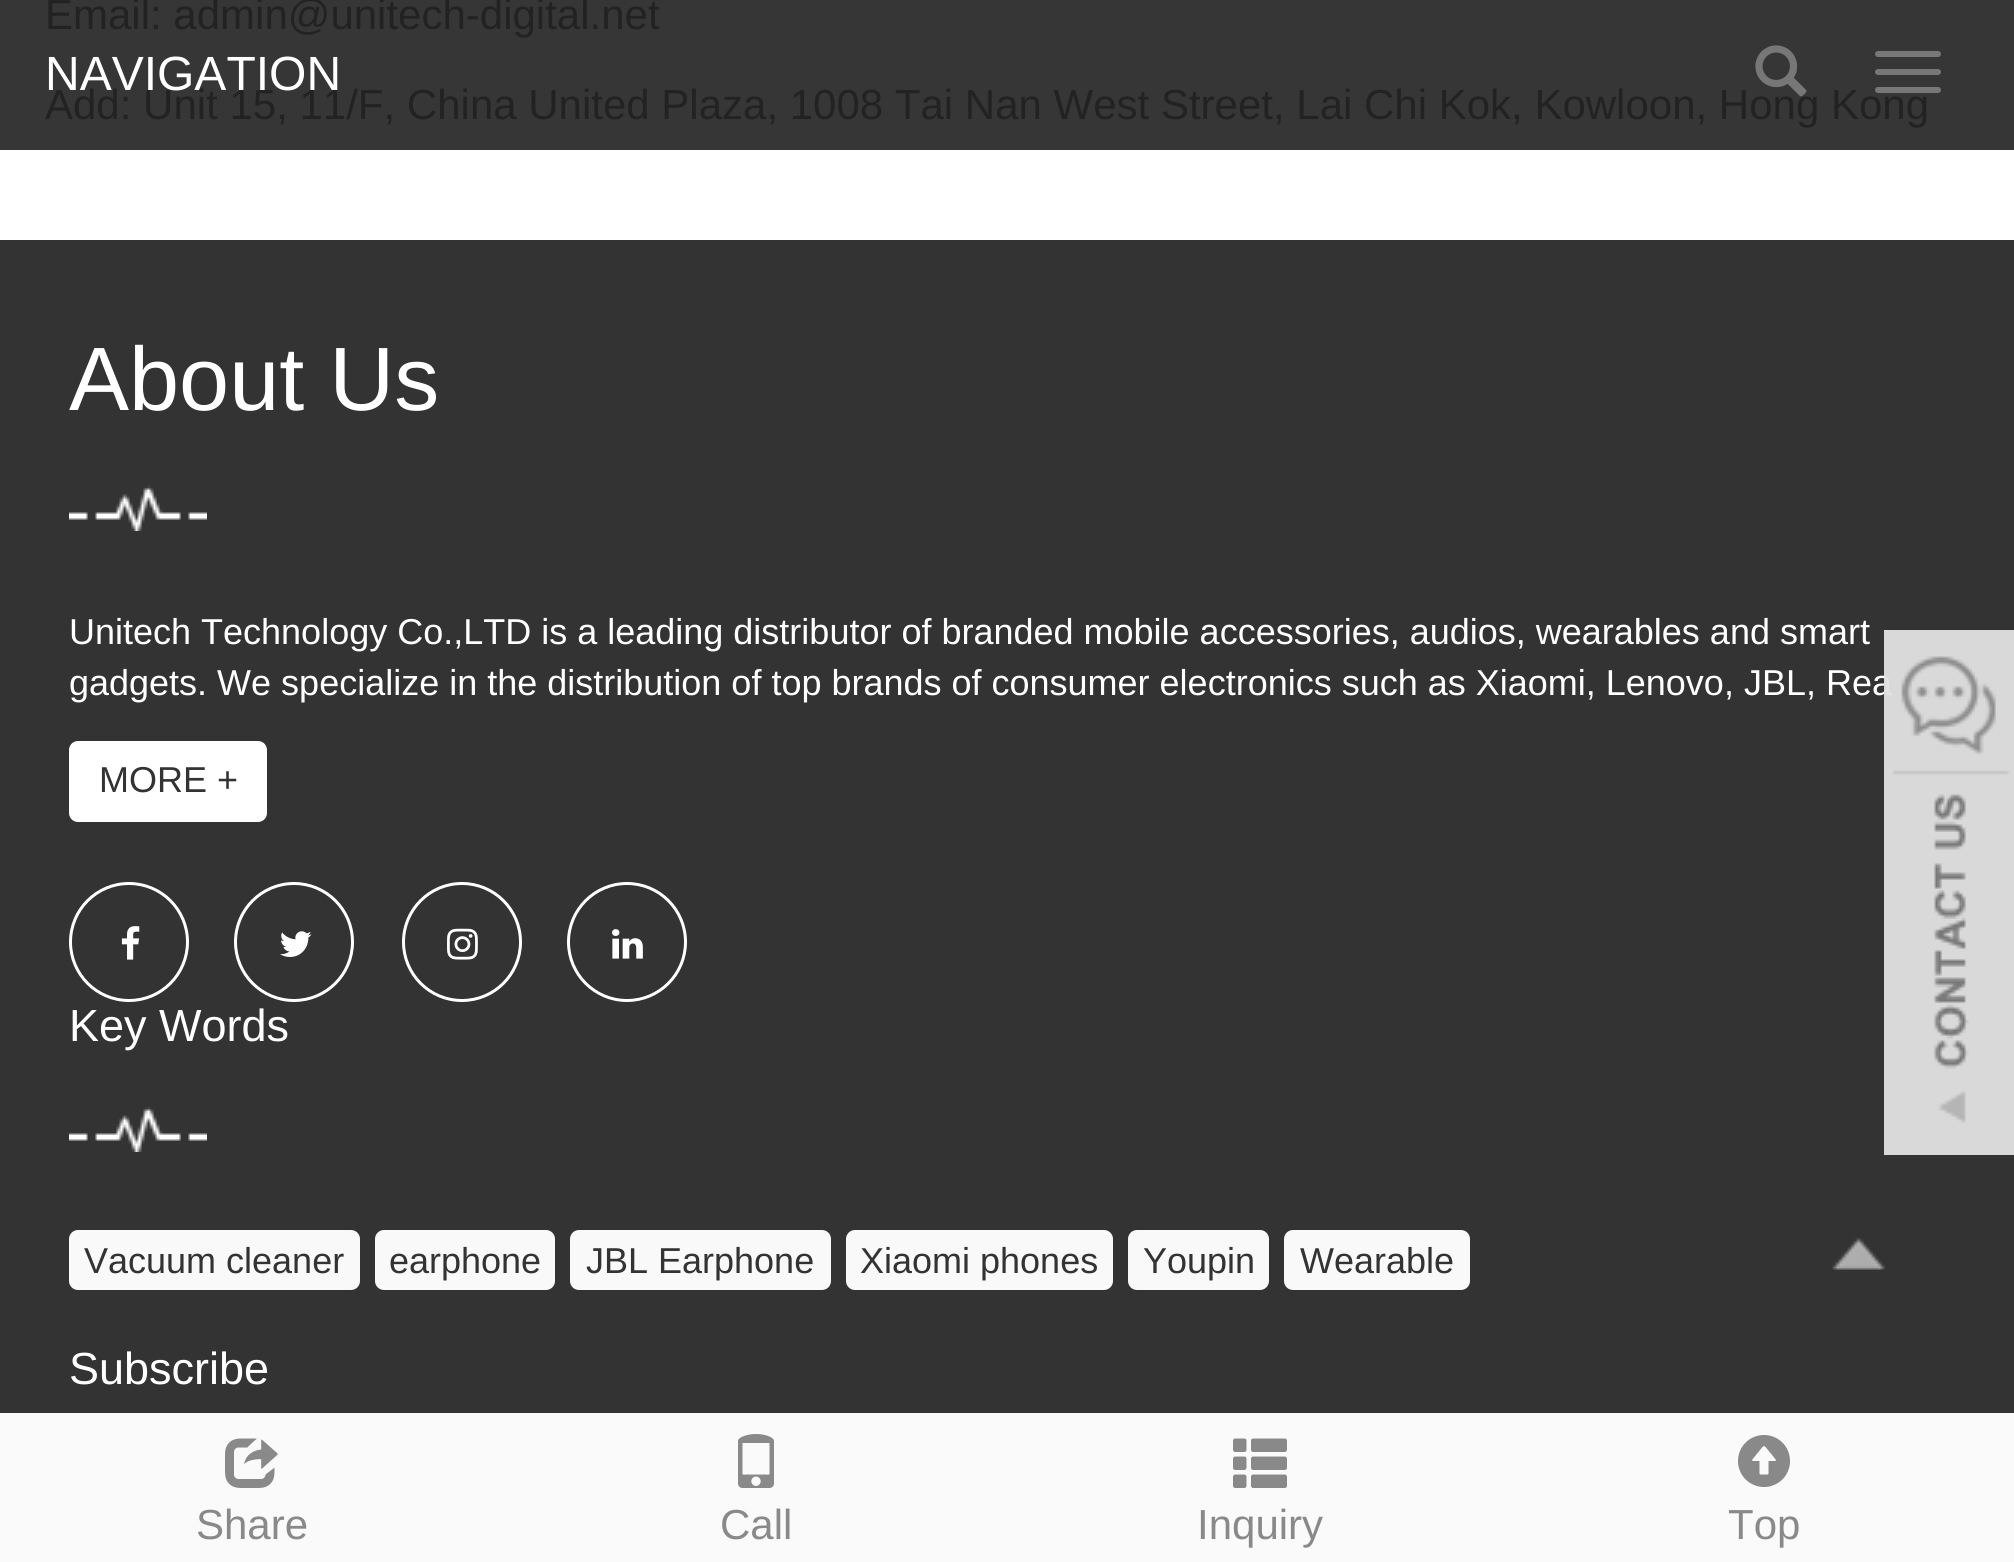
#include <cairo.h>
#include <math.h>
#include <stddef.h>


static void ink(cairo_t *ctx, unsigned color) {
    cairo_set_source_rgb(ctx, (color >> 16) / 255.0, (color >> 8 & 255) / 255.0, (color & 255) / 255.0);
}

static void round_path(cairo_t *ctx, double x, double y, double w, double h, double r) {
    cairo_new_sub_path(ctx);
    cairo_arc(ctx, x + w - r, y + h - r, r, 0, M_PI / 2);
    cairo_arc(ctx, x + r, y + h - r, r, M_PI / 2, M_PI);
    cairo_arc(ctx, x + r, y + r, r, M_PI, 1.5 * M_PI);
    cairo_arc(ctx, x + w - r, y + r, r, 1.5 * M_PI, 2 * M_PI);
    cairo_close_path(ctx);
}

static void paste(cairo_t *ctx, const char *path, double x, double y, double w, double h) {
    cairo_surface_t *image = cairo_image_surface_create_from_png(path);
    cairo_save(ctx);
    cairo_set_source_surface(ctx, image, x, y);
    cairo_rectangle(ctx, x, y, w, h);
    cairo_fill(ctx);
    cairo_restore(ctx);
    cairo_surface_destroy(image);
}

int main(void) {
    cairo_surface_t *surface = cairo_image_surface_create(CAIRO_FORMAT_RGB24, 2014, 1562);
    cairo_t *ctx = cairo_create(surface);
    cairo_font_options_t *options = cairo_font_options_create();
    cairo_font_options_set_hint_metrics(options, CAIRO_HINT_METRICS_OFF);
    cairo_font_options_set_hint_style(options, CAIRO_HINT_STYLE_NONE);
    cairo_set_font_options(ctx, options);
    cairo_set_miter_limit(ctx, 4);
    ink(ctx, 0xFFFFFF);
    cairo_paint(ctx);
    ink(ctx, 0x363636);
    cairo_rectangle(ctx, 0, 0, 2014, 150);
    cairo_fill(ctx);
    cairo_select_font_face(ctx, "Liberation Sans", CAIRO_FONT_SLANT_NORMAL, CAIRO_FONT_WEIGHT_NORMAL);
    cairo_set_font_size(ctx, 42);
    ink(ctx, 0x222222);
    cairo_move_to(ctx, 45, 29);
    cairo_show_text(ctx, "Email: admin@unitech-digital.net");
    cairo_move_to(ctx, 45, 119);
    cairo_show_text(ctx, "Add: Unit 15, 11/F, China United Plaza, 1008 Tai Nan West Street, Lai Chi Kok, Kowloon, Hong Kong");
    cairo_set_font_size(ctx, 48);
    ink(ctx, 0xFFFFFF);
    cairo_move_to(ctx, 45, 90);
    cairo_show_text(ctx, "NAVIGATION");
    paste(ctx, "media/1.png", 1755, 45, 52, 52);
    ink(ctx, 0x777777);
    round_path(ctx, 1875, 51, 66, 6, 3);
    cairo_fill(ctx);
    round_path(ctx, 1875, 69, 66, 6, 3);
    cairo_fill(ctx);
    round_path(ctx, 1875, 87, 66, 6, 3);
    cairo_fill(ctx);
    ink(ctx, 0x333333);
    cairo_rectangle(ctx, 0, 240, 2014, 1173);
    cairo_fill(ctx);
    cairo_set_font_size(ctx, 90);
    ink(ctx, 0xFFFFFF);
    cairo_move_to(ctx, 69, 410);
    cairo_show_text(ctx, "About Us");
    paste(ctx, "media/2.png", 69, 486, 138, 45);
    cairo_set_font_size(ctx, 36);
    cairo_move_to(ctx, 69, 644);
    cairo_show_text(ctx, "Unitech Technology Co.,LTD is a leading distributor of branded mobile accessories, audios, wearables and smart");
    cairo_move_to(ctx, 69, 695);
    cairo_show_text(ctx, "gadgets. We specialize in the distribution of top brands of consumer electronics such as Xiaomi, Lenovo, JBL, Rea");
    round_path(ctx, 69, 741, 198, 81, 9);
    cairo_fill(ctx);
    ink(ctx, 0x333333);
    cairo_move_to(ctx, 99, 792);
    cairo_show_text(ctx, "MORE +");
    cairo_new_path(ctx);
    cairo_arc(ctx, 129, 942, 58.5, 0, 2 * M_PI);
    ink(ctx, 0xFFFFFF);
    cairo_set_line_width(ctx, 3);
    cairo_stroke(ctx);
    paste(ctx, "media/3.png", 121, 926, 19, 34);
    cairo_arc(ctx, 294, 942, 58.5, 0, 2 * M_PI);
    cairo_stroke(ctx);
    paste(ctx, "media/4.png", 280, 931, 32, 26);
    cairo_arc(ctx, 462, 942, 58.5, 0, 2 * M_PI);
    cairo_stroke(ctx);
    paste(ctx, "media/5.png", 447, 928, 31, 32);
    cairo_arc(ctx, 627, 942, 58.5, 0, 2 * M_PI);
    cairo_stroke(ctx);
    paste(ctx, "media/6.png", 612, 929, 31, 30);
    cairo_set_font_size(ctx, 45);
    cairo_move_to(ctx, 69, 1041);
    cairo_show_text(ctx, "Key Words");
    paste(ctx, "media/2.png", 69, 1107, 138, 45);
    ink(ctx, 0xF9F9F9);
    round_path(ctx, 69, 1230, 291, 60, 9);
    cairo_fill(ctx);
    cairo_set_font_size(ctx, 36);
    ink(ctx, 0x333333);
    cairo_move_to(ctx, 84, 1273);
    cairo_show_text(ctx, "Vacuum cleaner");
    ink(ctx, 0xF9F9F9);
    round_path(ctx, 375, 1230, 180, 60, 9);
    cairo_fill(ctx);
    ink(ctx, 0x333333);
    cairo_move_to(ctx, 389, 1273);
    cairo_show_text(ctx, "earphone");
    ink(ctx, 0xF9F9F9);
    round_path(ctx, 570, 1230, 261, 60, 9);
    cairo_fill(ctx);
    ink(ctx, 0x333333);
    cairo_move_to(ctx, 586, 1273);
    cairo_show_text(ctx, "JBL Earphone");
    ink(ctx, 0xF9F9F9);
    round_path(ctx, 846, 1230, 267, 60, 9);
    cairo_fill(ctx);
    ink(ctx, 0x333333);
    cairo_move_to(ctx, 860, 1273);
    cairo_show_text(ctx, "Xiaomi phones");
    ink(ctx, 0xF9F9F9);
    round_path(ctx, 1128, 1230, 141, 60, 9);
    cairo_fill(ctx);
    ink(ctx, 0x333333);
    cairo_move_to(ctx, 1143, 1273);
    cairo_show_text(ctx, "Youpin");
    ink(ctx, 0xF9F9F9);
    round_path(ctx, 1284, 1230, 186, 60, 9);
    cairo_fill(ctx);
    ink(ctx, 0x333333);
    cairo_move_to(ctx, 1300, 1273);
    cairo_show_text(ctx, "Wearable");
    cairo_set_font_size(ctx, 45);
    ink(ctx, 0xFFFFFF);
    cairo_move_to(ctx, 69, 1384);
    cairo_show_text(ctx, "Subscribe");
    paste(ctx, "media/7.png", 1884, 630, 130, 525);
    paste(ctx, "media/8.png", 1832, 1238, 53, 32);
    ink(ctx, 0xFAFAFA);
    cairo_rectangle(ctx, 0, 1413, 2014, 149);
    cairo_fill(ctx);
    paste(ctx, "media/9.png", 225, 1438, 53, 50);
    cairo_set_font_size(ctx, 42);
    ink(ctx, 0x898989);
    cairo_move_to(ctx, 196, 1539);
    cairo_show_text(ctx, "Share");
    paste(ctx, "media/10.png", 738, 1434, 36, 54);
    cairo_move_to(ctx, 720, 1539);
    cairo_show_text(ctx, "Call");
    paste(ctx, "media/11.png", 1233, 1438, 54, 50);
    cairo_move_to(ctx, 1197, 1539);
    cairo_show_text(ctx, "Inquiry");
    paste(ctx, "media/12.png", 1738, 1435, 52, 52);
    cairo_move_to(ctx, 1728, 1539);
    cairo_show_text(ctx, "Top");
    cairo_surface_write_to_png(surface, "image.png");
    cairo_font_options_destroy(options);
    cairo_destroy(ctx);
    cairo_surface_destroy(surface);
    return 0;
}
